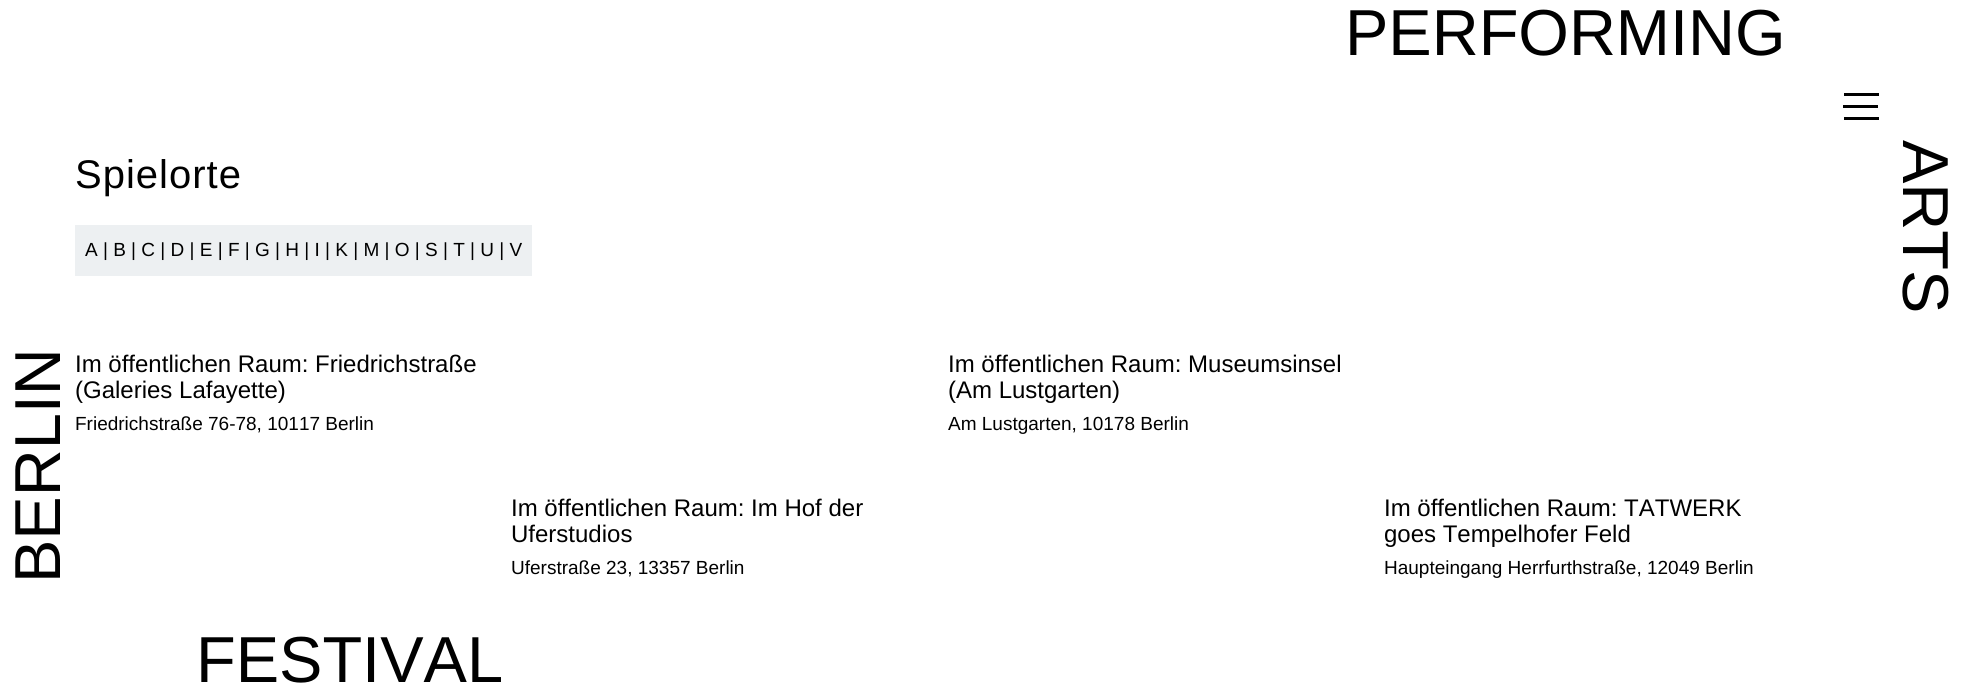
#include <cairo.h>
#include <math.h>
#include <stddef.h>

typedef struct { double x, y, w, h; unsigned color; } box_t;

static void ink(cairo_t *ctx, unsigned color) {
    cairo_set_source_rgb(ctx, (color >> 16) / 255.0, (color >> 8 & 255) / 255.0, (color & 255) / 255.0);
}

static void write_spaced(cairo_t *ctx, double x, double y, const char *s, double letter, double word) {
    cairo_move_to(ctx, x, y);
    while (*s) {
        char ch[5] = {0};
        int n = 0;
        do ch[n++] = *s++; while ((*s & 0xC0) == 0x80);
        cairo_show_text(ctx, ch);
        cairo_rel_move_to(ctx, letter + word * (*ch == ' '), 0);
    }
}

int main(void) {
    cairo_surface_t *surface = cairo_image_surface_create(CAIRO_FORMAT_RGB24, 1962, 692);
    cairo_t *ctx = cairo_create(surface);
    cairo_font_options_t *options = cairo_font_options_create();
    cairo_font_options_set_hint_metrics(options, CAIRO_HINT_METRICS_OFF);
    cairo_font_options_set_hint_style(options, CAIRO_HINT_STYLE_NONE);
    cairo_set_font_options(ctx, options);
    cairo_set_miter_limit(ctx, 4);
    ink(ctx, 0xFFFFFF);
    cairo_paint(ctx);
    cairo_select_font_face(ctx, "Liberation Sans", CAIRO_FONT_SLANT_NORMAL, CAIRO_FONT_WEIGHT_NORMAL);
    cairo_set_font_size(ctx, 65);
    ink(ctx, 0x000000);
    cairo_move_to(ctx, 1345, 55);
    cairo_show_text(ctx, "PERFORMING");
    {
        static const box_t items[] = {
            {1843, 105, 35, 3, 0x000000},
            {1844, 93, 35, 3, 0x000000},
            {1844, 117, 35, 3, 0x000000},
        };
        for (size_t i = 0; i < sizeof items / sizeof *items; i++) {
            ink(ctx, items[i].color);
            cairo_rectangle(ctx, items[i].x, items[i].y, items[i].w, items[i].h);
            cairo_fill(ctx);
        }
    }
    cairo_save(ctx);
    cairo_translate(ctx, 1903, 140);
    cairo_rotate(ctx, 90 * M_PI / 180);
    cairo_move_to(ctx, 0, 0);
    cairo_show_text(ctx, "ARTS");
    cairo_restore(ctx);
    cairo_save(ctx);
    cairo_translate(ctx, 60, 583);
    cairo_rotate(ctx, -90 * M_PI / 180);
    cairo_move_to(ctx, 0, 0);
    cairo_show_text(ctx, "BERLIN");
    cairo_restore(ctx);
    cairo_move_to(ctx, 196, 682);
    cairo_show_text(ctx, "FESTIVAL");
    cairo_set_font_size(ctx, 40);
    write_spaced(ctx, 75, 188, "Spielorte", 1, 0);
    ink(ctx, 0xEDF0F2);
    cairo_rectangle(ctx, 75, 225, 457, 51);
    cairo_fill(ctx);
    cairo_set_font_size(ctx, 19);
    ink(ctx, 0x000000);
    cairo_move_to(ctx, 85, 256);
    cairo_show_text(ctx, "A | B | C | D | E | F | G | H | I | K | M | O | S | T | U | V");
    cairo_set_font_size(ctx, 24);
    cairo_move_to(ctx, 75, 372);
    cairo_show_text(ctx, "Im öffentlichen Raum: Friedrichstraße");
    cairo_move_to(ctx, 75, 398);
    cairo_show_text(ctx, "(Galeries Lafayette)");
    cairo_set_font_size(ctx, 19);
    cairo_move_to(ctx, 75, 430);
    cairo_show_text(ctx, "Friedrichstraße 76-78, 10117 Berlin");
    cairo_set_font_size(ctx, 24);
    cairo_move_to(ctx, 948, 372);
    cairo_show_text(ctx, "Im öffentlichen Raum: Museumsinsel");
    cairo_move_to(ctx, 948, 398);
    cairo_show_text(ctx, "(Am Lustgarten)");
    cairo_set_font_size(ctx, 19);
    cairo_move_to(ctx, 948, 430);
    cairo_show_text(ctx, "Am Lustgarten, 10178 Berlin");
    cairo_set_font_size(ctx, 24);
    cairo_move_to(ctx, 511, 516);
    cairo_show_text(ctx, "Im öffentlichen Raum: Im Hof der");
    cairo_move_to(ctx, 511, 542);
    cairo_show_text(ctx, "Uferstudios");
    cairo_set_font_size(ctx, 19);
    cairo_move_to(ctx, 511, 574);
    cairo_show_text(ctx, "Uferstraße 23, 13357 Berlin");
    cairo_set_font_size(ctx, 24);
    cairo_move_to(ctx, 1384, 516);
    cairo_show_text(ctx, "Im öffentlichen Raum: TATWERK");
    cairo_move_to(ctx, 1384, 542);
    cairo_show_text(ctx, "goes Tempelhofer Feld");
    cairo_set_font_size(ctx, 19);
    cairo_move_to(ctx, 1384, 574);
    cairo_show_text(ctx, "Haupteingang Herrfurthstraße, 12049 Berlin");
    cairo_surface_write_to_png(surface, "image.png");
    cairo_font_options_destroy(options);
    cairo_destroy(ctx);
    cairo_surface_destroy(surface);
    return 0;
}
